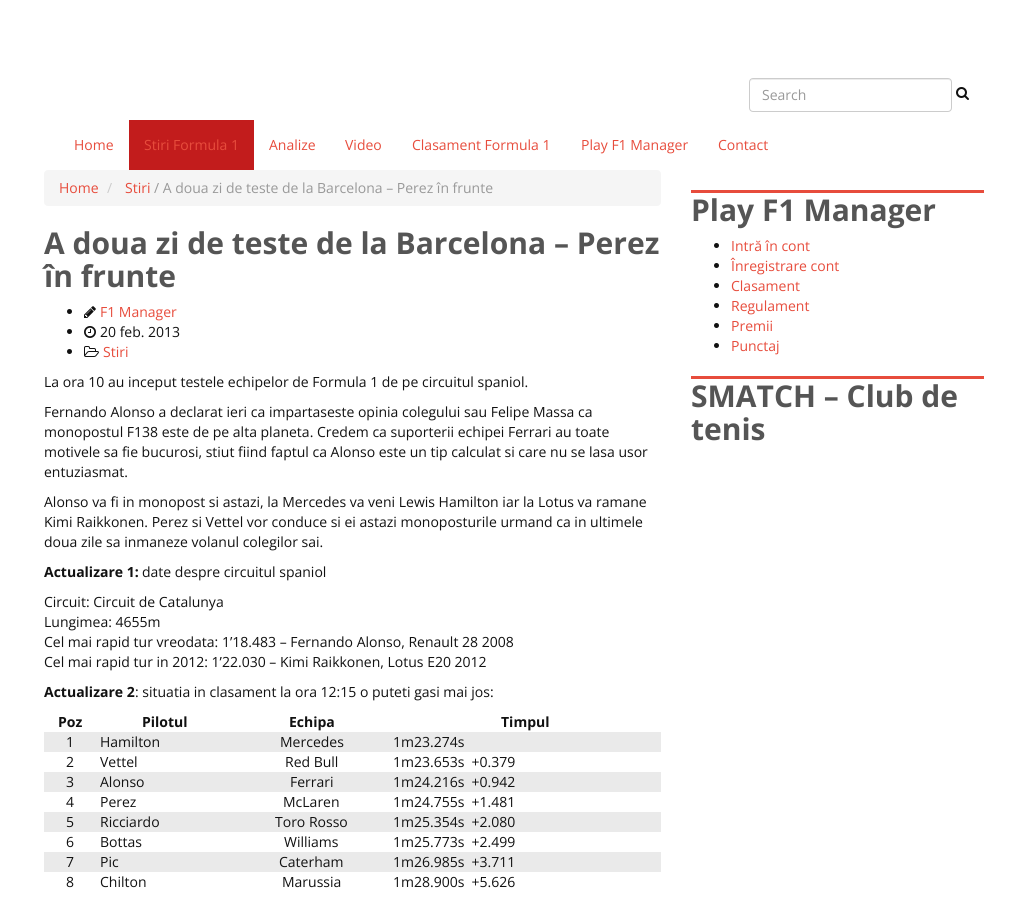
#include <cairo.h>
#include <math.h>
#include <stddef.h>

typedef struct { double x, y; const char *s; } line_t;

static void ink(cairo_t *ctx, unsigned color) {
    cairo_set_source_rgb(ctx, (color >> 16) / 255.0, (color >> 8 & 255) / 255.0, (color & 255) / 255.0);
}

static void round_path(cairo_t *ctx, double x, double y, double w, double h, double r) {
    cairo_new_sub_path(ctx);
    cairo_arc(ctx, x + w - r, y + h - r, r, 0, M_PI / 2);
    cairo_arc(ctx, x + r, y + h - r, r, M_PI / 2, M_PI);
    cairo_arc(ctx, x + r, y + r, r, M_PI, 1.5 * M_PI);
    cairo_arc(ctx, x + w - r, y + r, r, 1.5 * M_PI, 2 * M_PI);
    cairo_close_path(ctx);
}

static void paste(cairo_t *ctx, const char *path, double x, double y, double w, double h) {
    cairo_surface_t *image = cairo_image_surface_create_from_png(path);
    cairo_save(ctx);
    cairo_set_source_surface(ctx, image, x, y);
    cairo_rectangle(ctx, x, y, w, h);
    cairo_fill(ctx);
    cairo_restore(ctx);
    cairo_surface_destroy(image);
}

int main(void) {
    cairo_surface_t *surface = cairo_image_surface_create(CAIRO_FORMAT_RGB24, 1028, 924);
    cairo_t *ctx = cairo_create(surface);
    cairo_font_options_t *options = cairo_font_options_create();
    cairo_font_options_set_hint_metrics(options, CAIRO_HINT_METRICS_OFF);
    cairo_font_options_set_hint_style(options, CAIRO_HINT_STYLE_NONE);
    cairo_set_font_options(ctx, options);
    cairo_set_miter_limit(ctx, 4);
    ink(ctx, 0xFFFFFF);
    cairo_paint(ctx);
    ink(ctx, 0xECECEC);
    cairo_new_path(ctx);
    cairo_move_to(ctx, 753, 80);
    cairo_line_to(ctx, 948, 80);
    cairo_curve_to(ctx, 950, 80, 951, 81, 951, 83);
    cairo_curve_to(ctx, 951, 81, 950, 79, 948, 79);
    cairo_line_to(ctx, 753, 79);
    cairo_curve_to(ctx, 751, 79, 750, 81, 750, 83);
    cairo_curve_to(ctx, 750, 81, 751, 80, 753, 80);
    cairo_close_path(ctx);
    cairo_fill(ctx);
    round_path(ctx, 749.5, 78.5, 202, 33, 3.5);
    ink(ctx, 0xCCCCCC);
    cairo_set_line_width(ctx, 1);
    cairo_stroke(ctx);
    cairo_select_font_face(ctx, "Open Sans", CAIRO_FONT_SLANT_NORMAL, CAIRO_FONT_WEIGHT_NORMAL);
    cairo_set_font_size(ctx, 14);
    ink(ctx, 0x999999);
    cairo_move_to(ctx, 762, 100);
    cairo_show_text(ctx, "Search");
    paste(ctx, "media/1.png", 956, 87, 13, 13);
    ink(ctx, 0xE74C3C);
    cairo_move_to(ctx, 74, 150);
    cairo_show_text(ctx, "Home");
    ink(ctx, 0xC21C1C);
    cairo_rectangle(ctx, 129, 120, 125, 50);
    cairo_fill(ctx);
    ink(ctx, 0xE74C3C);
    {
        static const line_t items[] = {
            {144, 150, "Stiri Formula 1"},
            {269, 150, "Analize"},
            {345, 150, "Video"},
            {412, 150, "Clasament Formula 1"},
            {581, 150, "Play F1 Manager"},
            {718, 150, "Contact"},
        };
        for (size_t i = 0; i < sizeof items / sizeof *items; i++) {
            cairo_move_to(ctx, items[i].x, items[i].y);
            cairo_show_text(ctx, items[i].s);
        }
    }
    ink(ctx, 0xF5F5F5);
    round_path(ctx, 44, 170, 617, 36, 4);
    cairo_fill(ctx);
    ink(ctx, 0xE74C3C);
    cairo_move_to(ctx, 59, 193);
    cairo_show_text(ctx, "Home");
    ink(ctx, 0xCCCCCC);
    cairo_move_to(ctx, 107, 193);
    cairo_show_text(ctx, "/");
    ink(ctx, 0xE74C3C);
    cairo_move_to(ctx, 125, 193);
    cairo_show_text(ctx, "Stiri");
    ink(ctx, 0x999999);
    cairo_move_to(ctx, 154, 193);
    cairo_show_text(ctx, "/ A doua zi de teste de la Barcelona – Perez în frunte");
    cairo_select_font_face(ctx, "Open Sans", CAIRO_FONT_SLANT_NORMAL, CAIRO_FONT_WEIGHT_BOLD);
    cairo_set_font_size(ctx, 30);
    ink(ctx, 0x555555);
    cairo_move_to(ctx, 44, 254);
    cairo_show_text(ctx, "A doua zi de teste de la Barcelona – Perez");
    cairo_move_to(ctx, 44, 287);
    cairo_show_text(ctx, "în frunte");
    ink(ctx, 0x111111);
    cairo_new_path(ctx);
    cairo_arc(ctx, 69.5, 311.5, 2.5, 0, 2 * M_PI);
    cairo_fill(ctx);
    paste(ctx, "media/2.png", 84, 306, 12, 12);
    cairo_select_font_face(ctx, "Open Sans", CAIRO_FONT_SLANT_NORMAL, CAIRO_FONT_WEIGHT_NORMAL);
    cairo_set_font_size(ctx, 14);
    ink(ctx, 0xE74C3C);
    cairo_move_to(ctx, 100, 317);
    cairo_show_text(ctx, "F1 Manager");
    ink(ctx, 0x111111);
    cairo_new_path(ctx);
    cairo_arc(ctx, 69.5, 331.5, 2.5, 0, 2 * M_PI);
    cairo_fill(ctx);
    paste(ctx, "media/3.png", 84, 326, 12, 12);
    cairo_move_to(ctx, 100, 337);
    cairo_show_text(ctx, "20 feb. 2013");
    cairo_new_path(ctx);
    cairo_arc(ctx, 69.5, 351.5, 2.5, 0, 2 * M_PI);
    cairo_fill(ctx);
    paste(ctx, "media/4.png", 84, 346, 15, 11);
    ink(ctx, 0xE74C3C);
    cairo_move_to(ctx, 103, 357);
    cairo_show_text(ctx, "Stiri");
    ink(ctx, 0x111111);
    {
        static const line_t items[] = {
            {44, 387, "La ora 10 au inceput testele echipelor de Formula 1 de pe circuitul spaniol."},
            {44, 417, "Fernando Alonso a declarat ieri ca impartaseste opinia colegului sau Felipe Massa ca"},
            {44, 437, "monopostul F138 este de pe alta planeta. Credem ca suporterii echipei Ferrari au toate"},
            {44, 457, "motivele sa fie bucurosi, stiut fiind faptul ca Alonso este un tip calculat si care nu se lasa usor"},
            {44, 477, "entuziasmat."},
            {44, 507, "Alonso va fi in monopost si astazi, la Mercedes va veni Lewis Hamilton iar la Lotus va ramane"},
            {44, 527, "Kimi Raikkonen. Perez si Vettel vor conduce si ei astazi monoposturile urmand ca in ultimele"},
            {44, 547, "doua zile sa inmaneze volanul colegilor sai."},
        };
        for (size_t i = 0; i < sizeof items / sizeof *items; i++) {
            cairo_move_to(ctx, items[i].x, items[i].y);
            cairo_show_text(ctx, items[i].s);
        }
    }
    cairo_select_font_face(ctx, "Open Sans", CAIRO_FONT_SLANT_NORMAL, CAIRO_FONT_WEIGHT_BOLD);
    cairo_move_to(ctx, 44, 577);
    cairo_show_text(ctx, "Actualizare 1:");
    cairo_select_font_face(ctx, "Open Sans", CAIRO_FONT_SLANT_NORMAL, CAIRO_FONT_WEIGHT_NORMAL);
    {
        static const line_t items[] = {
            {142, 577, "date despre circuitul spaniol"},
            {44, 607, "Circuit: Circuit de Catalunya"},
            {44, 627, "Lungimea: 4655m"},
            {44, 647, "Cel mai rapid tur vreodata: 1’18.483 – Fernando Alonso, Renault 28 2008"},
            {44, 667, "Cel mai rapid tur in 2012: 1’22.030 – Kimi Raikkonen, Lotus E20 2012"},
        };
        for (size_t i = 0; i < sizeof items / sizeof *items; i++) {
            cairo_move_to(ctx, items[i].x, items[i].y);
            cairo_show_text(ctx, items[i].s);
        }
    }
    cairo_select_font_face(ctx, "Open Sans", CAIRO_FONT_SLANT_NORMAL, CAIRO_FONT_WEIGHT_BOLD);
    cairo_move_to(ctx, 44, 697);
    cairo_show_text(ctx, "Actualizare 2");
    cairo_select_font_face(ctx, "Open Sans", CAIRO_FONT_SLANT_NORMAL, CAIRO_FONT_WEIGHT_NORMAL);
    cairo_move_to(ctx, 135, 697);
    cairo_show_text(ctx, ": situatia in clasament la ora 12:15 o puteti gasi mai jos:");
    cairo_select_font_face(ctx, "Open Sans", CAIRO_FONT_SLANT_NORMAL, CAIRO_FONT_WEIGHT_BOLD);
    {
        static const line_t items[] = {
            {58, 727, "Poz"},
            {142, 727, "Pilotul"},
            {289, 727, "Echipa"},
            {501, 727, "Timpul"},
        };
        for (size_t i = 0; i < sizeof items / sizeof *items; i++) {
            cairo_move_to(ctx, items[i].x, items[i].y);
            cairo_show_text(ctx, items[i].s);
        }
    }
    ink(ctx, 0xEAEAEA);
    cairo_rectangle(ctx, 44, 732, 617, 20);
    cairo_fill(ctx);
    cairo_select_font_face(ctx, "Open Sans", CAIRO_FONT_SLANT_NORMAL, CAIRO_FONT_WEIGHT_NORMAL);
    ink(ctx, 0x111111);
    {
        static const line_t items[] = {
            {66, 747, "1"},
            {100, 747, "Hamilton"},
            {280, 747, "Mercedes"},
            {393, 747, "1m23.274s"},
            {66, 767, "2"},
            {100, 767, "Vettel"},
            {285, 767, "Red Bull"},
            {393, 767, "1m23.653s  +0.379"},
        };
        for (size_t i = 0; i < sizeof items / sizeof *items; i++) {
            cairo_move_to(ctx, items[i].x, items[i].y);
            cairo_show_text(ctx, items[i].s);
        }
    }
    ink(ctx, 0xEAEAEA);
    cairo_rectangle(ctx, 44, 772, 617, 20);
    cairo_fill(ctx);
    ink(ctx, 0x111111);
    {
        static const line_t items[] = {
            {66, 787, "3"},
            {100, 787, "Alonso"},
            {290, 787, "Ferrari"},
            {393, 787, "1m24.216s  +0.942"},
            {66, 807, "4"},
            {100, 807, "Perez"},
            {283, 807, "McLaren"},
            {393, 807, "1m24.755s  +1.481"},
        };
        for (size_t i = 0; i < sizeof items / sizeof *items; i++) {
            cairo_move_to(ctx, items[i].x, items[i].y);
            cairo_show_text(ctx, items[i].s);
        }
    }
    ink(ctx, 0xEAEAEA);
    cairo_rectangle(ctx, 44, 812, 617, 20);
    cairo_fill(ctx);
    ink(ctx, 0x111111);
    {
        static const line_t items[] = {
            {66, 827, "5"},
            {100, 827, "Ricciardo"},
            {275, 827, "Toro Rosso"},
            {393, 827, "1m25.354s  +2.080"},
            {66, 847, "6"},
            {100, 847, "Bottas"},
            {284, 847, "Williams"},
            {393, 847, "1m25.773s  +2.499"},
        };
        for (size_t i = 0; i < sizeof items / sizeof *items; i++) {
            cairo_move_to(ctx, items[i].x, items[i].y);
            cairo_show_text(ctx, items[i].s);
        }
    }
    ink(ctx, 0xEAEAEA);
    cairo_rectangle(ctx, 44, 852, 617, 20);
    cairo_fill(ctx);
    ink(ctx, 0x111111);
    {
        static const line_t items[] = {
            {66, 867, "7"},
            {100, 867, "Pic"},
            {279, 867, "Caterham"},
            {393, 867, "1m26.985s  +3.711"},
            {66, 887, "8"},
            {100, 887, "Chilton"},
            {282, 887, "Marussia"},
            {393, 887, "1m28.900s  +5.626"},
        };
        for (size_t i = 0; i < sizeof items / sizeof *items; i++) {
            cairo_move_to(ctx, items[i].x, items[i].y);
            cairo_show_text(ctx, items[i].s);
        }
    }
    ink(ctx, 0xE74C3C);
    cairo_rectangle(ctx, 691, 190, 293, 3);
    cairo_fill(ctx);
    cairo_select_font_face(ctx, "Open Sans", CAIRO_FONT_SLANT_NORMAL, CAIRO_FONT_WEIGHT_BOLD);
    cairo_set_font_size(ctx, 30);
    ink(ctx, 0x555555);
    cairo_move_to(ctx, 691, 221);
    cairo_show_text(ctx, "Play F1 Manager");
    ink(ctx, 0x111111);
    cairo_new_path(ctx);
    cairo_arc(ctx, 716.5, 245.5, 2.5, 0, 2 * M_PI);
    cairo_fill(ctx);
    cairo_select_font_face(ctx, "Open Sans", CAIRO_FONT_SLANT_NORMAL, CAIRO_FONT_WEIGHT_NORMAL);
    cairo_set_font_size(ctx, 14);
    ink(ctx, 0xE74C3C);
    cairo_move_to(ctx, 731, 251);
    cairo_show_text(ctx, "Intră în cont");
    ink(ctx, 0x111111);
    cairo_new_path(ctx);
    cairo_arc(ctx, 716.5, 265.5, 2.5, 0, 2 * M_PI);
    cairo_fill(ctx);
    ink(ctx, 0xE74C3C);
    cairo_move_to(ctx, 731, 271);
    cairo_show_text(ctx, "Înregistrare cont");
    ink(ctx, 0x111111);
    cairo_new_path(ctx);
    cairo_arc(ctx, 716.5, 285.5, 2.5, 0, 2 * M_PI);
    cairo_fill(ctx);
    ink(ctx, 0xE74C3C);
    cairo_move_to(ctx, 731, 291);
    cairo_show_text(ctx, "Clasament");
    ink(ctx, 0x111111);
    cairo_new_path(ctx);
    cairo_arc(ctx, 716.5, 305.5, 2.5, 0, 2 * M_PI);
    cairo_fill(ctx);
    ink(ctx, 0xE74C3C);
    cairo_move_to(ctx, 731, 311);
    cairo_show_text(ctx, "Regulament");
    ink(ctx, 0x111111);
    cairo_new_path(ctx);
    cairo_arc(ctx, 716.5, 325.5, 2.5, 0, 2 * M_PI);
    cairo_fill(ctx);
    ink(ctx, 0xE74C3C);
    cairo_move_to(ctx, 731, 331);
    cairo_show_text(ctx, "Premii");
    ink(ctx, 0x111111);
    cairo_new_path(ctx);
    cairo_arc(ctx, 716.5, 345.5, 2.5, 0, 2 * M_PI);
    cairo_fill(ctx);
    ink(ctx, 0xE74C3C);
    cairo_move_to(ctx, 731, 351);
    cairo_show_text(ctx, "Punctaj");
    cairo_rectangle(ctx, 691, 376, 293, 3);
    cairo_fill(ctx);
    cairo_select_font_face(ctx, "Open Sans", CAIRO_FONT_SLANT_NORMAL, CAIRO_FONT_WEIGHT_BOLD);
    cairo_set_font_size(ctx, 30);
    ink(ctx, 0x555555);
    cairo_move_to(ctx, 691, 407);
    cairo_show_text(ctx, "SMATCH – Club de");
    cairo_move_to(ctx, 691, 440);
    cairo_show_text(ctx, "tenis");
    cairo_surface_write_to_png(surface, "image.png");
    cairo_font_options_destroy(options);
    cairo_destroy(ctx);
    cairo_surface_destroy(surface);
    return 0;
}
